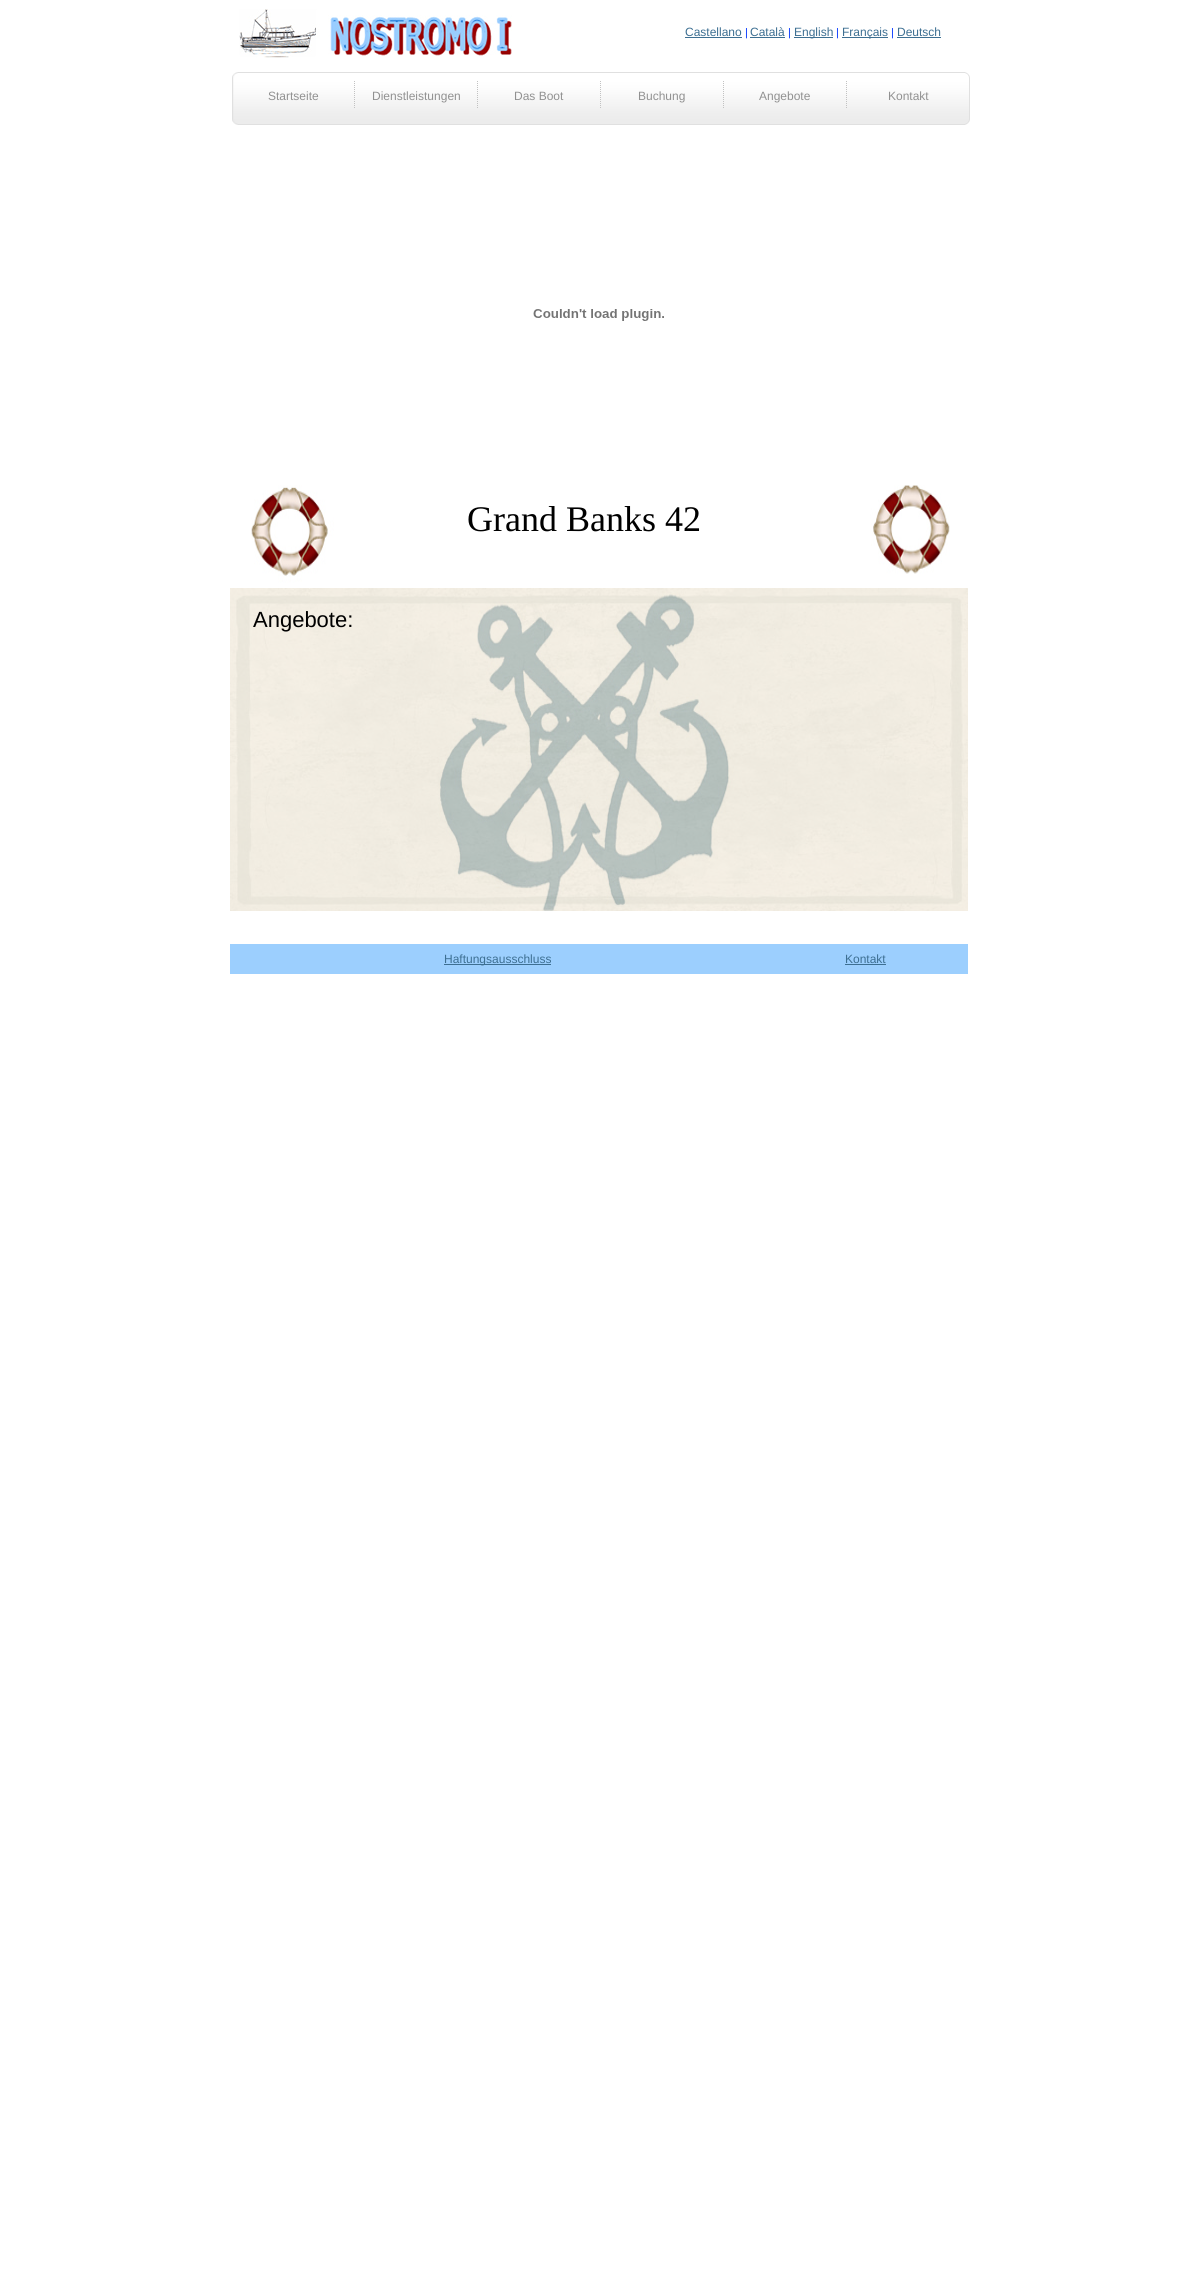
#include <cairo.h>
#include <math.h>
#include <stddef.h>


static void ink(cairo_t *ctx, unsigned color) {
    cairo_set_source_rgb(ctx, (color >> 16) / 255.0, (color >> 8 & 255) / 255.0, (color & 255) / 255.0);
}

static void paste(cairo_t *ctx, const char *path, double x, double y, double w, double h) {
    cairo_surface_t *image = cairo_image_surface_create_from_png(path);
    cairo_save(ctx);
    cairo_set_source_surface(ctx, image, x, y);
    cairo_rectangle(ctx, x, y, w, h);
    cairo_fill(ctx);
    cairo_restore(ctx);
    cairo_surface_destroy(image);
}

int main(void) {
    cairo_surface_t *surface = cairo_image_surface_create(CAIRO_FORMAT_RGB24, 1204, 2285);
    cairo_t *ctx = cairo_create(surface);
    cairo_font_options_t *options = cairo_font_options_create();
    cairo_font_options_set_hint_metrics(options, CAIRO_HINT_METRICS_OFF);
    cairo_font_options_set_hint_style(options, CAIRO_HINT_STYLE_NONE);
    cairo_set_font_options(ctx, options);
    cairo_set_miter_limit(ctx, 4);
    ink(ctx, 0xFFFFFF);
    cairo_paint(ctx);
    paste(ctx, "media/1.png", 239, 9, 273, 49);
    cairo_select_font_face(ctx, "Liberation Sans", CAIRO_FONT_SLANT_NORMAL, CAIRO_FONT_WEIGHT_NORMAL);
    cairo_set_font_size(ctx, 12);
    ink(ctx, 0x3D6F92);
    cairo_move_to(ctx, 685, 36);
    cairo_show_text(ctx, "Castellano");
    cairo_rectangle(ctx, 685, 37, 57, 1);
    cairo_fill(ctx);
    cairo_set_font_size(ctx, 11);
    ink(ctx, 0x0033FF);
    cairo_move_to(ctx, 745, 36);
    cairo_show_text(ctx, "|");
    cairo_set_font_size(ctx, 12);
    ink(ctx, 0x3D6F92);
    cairo_move_to(ctx, 750, 36);
    cairo_show_text(ctx, "Català");
    cairo_rectangle(ctx, 750, 37, 35, 1);
    cairo_fill(ctx);
    cairo_set_font_size(ctx, 11);
    ink(ctx, 0x0033FF);
    cairo_move_to(ctx, 788, 36);
    cairo_show_text(ctx, "|");
    ink(ctx, 0x3D6F92);
    cairo_rectangle(ctx, 794, 37, 39, 1);
    cairo_fill(ctx);
    cairo_set_font_size(ctx, 12);
    cairo_move_to(ctx, 794, 36);
    cairo_show_text(ctx, "English");
    cairo_set_font_size(ctx, 11);
    ink(ctx, 0x0033FF);
    cairo_move_to(ctx, 836, 36);
    cairo_show_text(ctx, "|");
    ink(ctx, 0x3D6F92);
    cairo_rectangle(ctx, 842, 37, 46, 1);
    cairo_fill(ctx);
    cairo_set_font_size(ctx, 12);
    cairo_move_to(ctx, 842, 36);
    cairo_show_text(ctx, "Français");
    cairo_set_font_size(ctx, 11);
    ink(ctx, 0x0033FF);
    cairo_move_to(ctx, 891, 36);
    cairo_show_text(ctx, "|");
    cairo_set_font_size(ctx, 12);
    ink(ctx, 0x3D6F92);
    cairo_move_to(ctx, 897, 36);
    cairo_show_text(ctx, "Deutsch");
    cairo_rectangle(ctx, 897, 37, 44, 1);
    cairo_fill(ctx);
    paste(ctx, "media/2.png", 238, 72, 727, 53);
    paste(ctx, "media/3.png", 965, 72, 5, 53);
    paste(ctx, "media/4.png", 232, 72, 6, 53);
    paste(ctx, "media/5.png", 354, 81, 1, 27);
    ink(ctx, 0x919191);
    cairo_move_to(ctx, 268, 100);
    cairo_show_text(ctx, "Startseite");
    paste(ctx, "media/5.png", 477, 81, 1, 27);
    cairo_move_to(ctx, 372, 100);
    cairo_show_text(ctx, "Dienstleistungen");
    paste(ctx, "media/5.png", 600, 81, 1, 27);
    cairo_move_to(ctx, 514, 100);
    cairo_show_text(ctx, "Das Boot");
    paste(ctx, "media/5.png", 723, 81, 1, 27);
    cairo_move_to(ctx, 638, 100);
    cairo_show_text(ctx, "Buchung");
    paste(ctx, "media/5.png", 846, 81, 1, 27);
    cairo_move_to(ctx, 759, 100);
    cairo_show_text(ctx, "Angebote");
    cairo_move_to(ctx, 888, 100);
    cairo_show_text(ctx, "Kontakt");
    paste(ctx, "media/6.png", 533, 309, 131, 12);
    paste(ctx, "media/7.png", 251, 485, 699, 426);
    cairo_select_font_face(ctx, "Liberation Serif", CAIRO_FONT_SLANT_NORMAL, CAIRO_FONT_WEIGHT_NORMAL);
    cairo_set_font_size(ctx, 36);
    ink(ctx, 0x000000);
    cairo_move_to(ctx, 467, 531);
    cairo_show_text(ctx, "Grand Banks 42");
    paste(ctx, "media/8.png", 230, 588, 738, 323);
    cairo_select_font_face(ctx, "Liberation Sans", CAIRO_FONT_SLANT_NORMAL, CAIRO_FONT_WEIGHT_NORMAL);
    cairo_set_font_size(ctx, 22);
    cairo_move_to(ctx, 253, 627);
    cairo_show_text(ctx, "Angebote:");
    ink(ctx, 0x9CCFFE);
    cairo_rectangle(ctx, 230, 944, 738, 30);
    cairo_fill(ctx);
    ink(ctx, 0x3D6F92);
    cairo_rectangle(ctx, 444, 964, 107, 1);
    cairo_fill(ctx);
    cairo_set_font_size(ctx, 12);
    cairo_move_to(ctx, 444, 963);
    cairo_show_text(ctx, "Haftungsausschluss");
    cairo_move_to(ctx, 845, 963);
    cairo_show_text(ctx, "Kontakt");
    cairo_rectangle(ctx, 845, 964, 41, 1);
    cairo_fill(ctx);
    cairo_surface_write_to_png(surface, "image.png");
    cairo_font_options_destroy(options);
    cairo_destroy(ctx);
    cairo_surface_destroy(surface);
    return 0;
}
